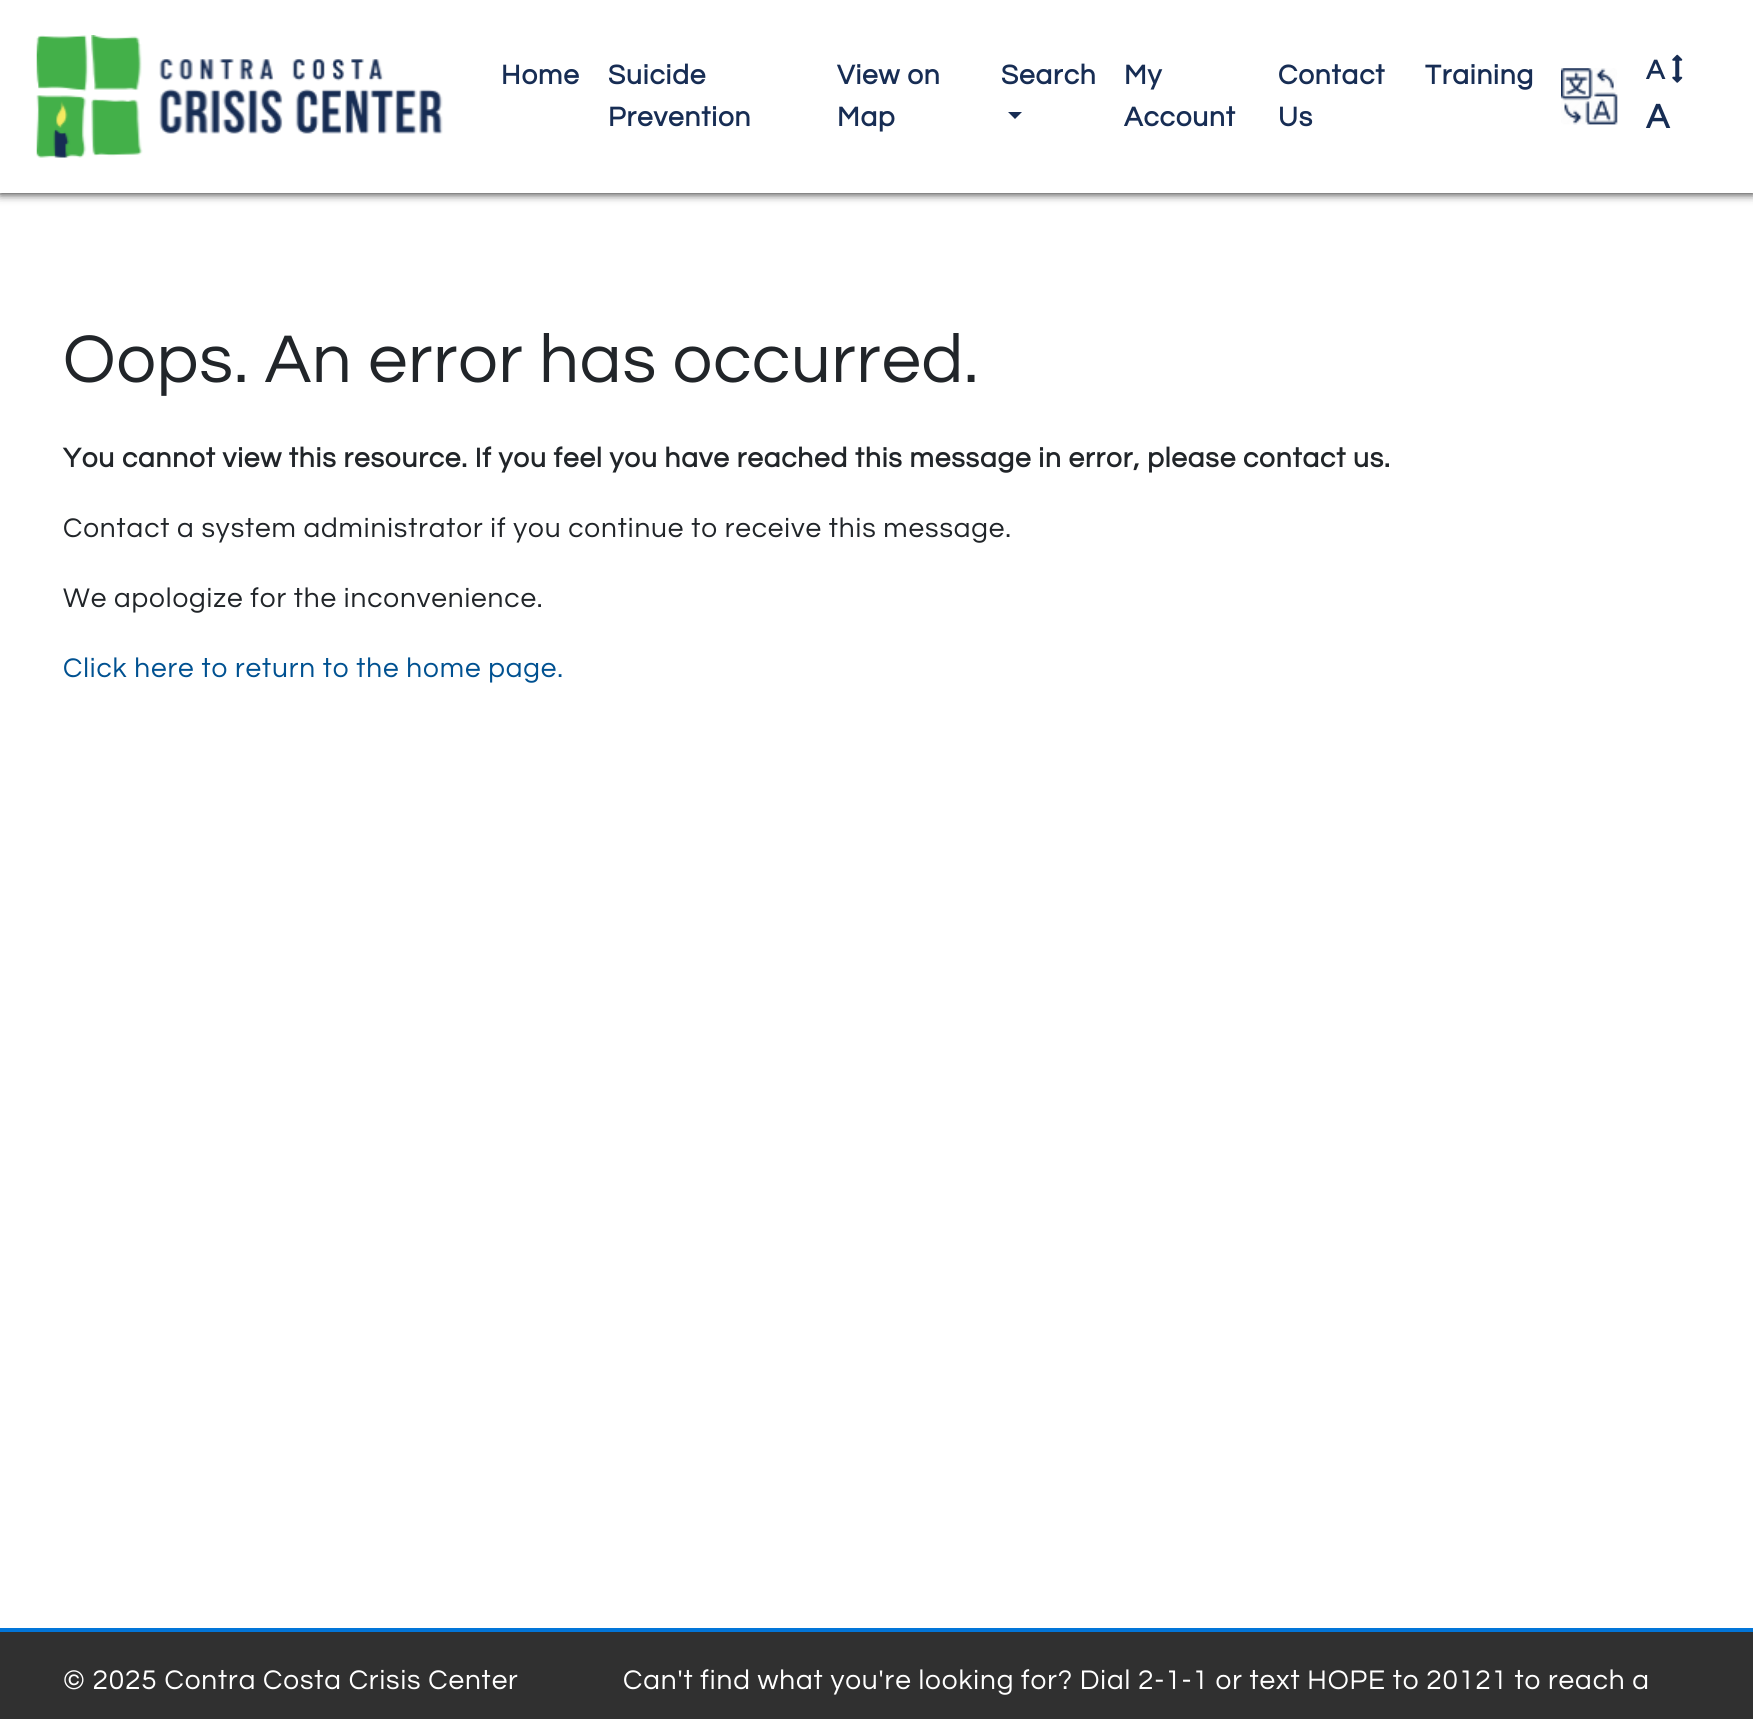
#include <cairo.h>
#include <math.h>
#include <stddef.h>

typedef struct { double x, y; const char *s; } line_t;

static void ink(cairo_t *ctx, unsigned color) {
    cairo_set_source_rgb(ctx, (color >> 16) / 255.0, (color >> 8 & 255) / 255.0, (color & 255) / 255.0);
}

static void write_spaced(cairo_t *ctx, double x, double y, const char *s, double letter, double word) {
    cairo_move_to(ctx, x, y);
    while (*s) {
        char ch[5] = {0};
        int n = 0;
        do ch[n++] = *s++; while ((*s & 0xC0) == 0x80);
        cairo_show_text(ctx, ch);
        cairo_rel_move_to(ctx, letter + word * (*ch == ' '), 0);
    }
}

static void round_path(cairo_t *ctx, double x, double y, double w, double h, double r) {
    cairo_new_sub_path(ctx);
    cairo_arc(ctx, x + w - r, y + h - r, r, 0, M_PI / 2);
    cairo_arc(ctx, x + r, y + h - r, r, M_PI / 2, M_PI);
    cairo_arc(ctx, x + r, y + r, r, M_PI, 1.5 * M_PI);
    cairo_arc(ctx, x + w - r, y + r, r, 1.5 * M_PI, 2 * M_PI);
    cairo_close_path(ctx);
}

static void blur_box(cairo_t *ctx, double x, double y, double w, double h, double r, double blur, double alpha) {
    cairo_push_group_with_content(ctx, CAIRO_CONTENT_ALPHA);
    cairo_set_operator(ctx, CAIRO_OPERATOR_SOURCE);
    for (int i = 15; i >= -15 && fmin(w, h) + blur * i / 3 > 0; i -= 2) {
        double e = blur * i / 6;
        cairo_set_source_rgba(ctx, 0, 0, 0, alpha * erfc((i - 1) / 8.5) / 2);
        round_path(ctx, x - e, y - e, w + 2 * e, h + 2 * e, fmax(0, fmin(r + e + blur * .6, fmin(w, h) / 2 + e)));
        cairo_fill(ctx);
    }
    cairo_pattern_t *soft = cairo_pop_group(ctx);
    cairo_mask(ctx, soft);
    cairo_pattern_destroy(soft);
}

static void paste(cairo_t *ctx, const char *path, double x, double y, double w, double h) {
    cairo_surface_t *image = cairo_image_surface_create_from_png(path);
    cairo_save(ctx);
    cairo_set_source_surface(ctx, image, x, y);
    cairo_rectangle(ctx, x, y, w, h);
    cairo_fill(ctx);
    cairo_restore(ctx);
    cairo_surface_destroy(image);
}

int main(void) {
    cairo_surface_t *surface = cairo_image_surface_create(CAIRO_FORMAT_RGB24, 1753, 1719);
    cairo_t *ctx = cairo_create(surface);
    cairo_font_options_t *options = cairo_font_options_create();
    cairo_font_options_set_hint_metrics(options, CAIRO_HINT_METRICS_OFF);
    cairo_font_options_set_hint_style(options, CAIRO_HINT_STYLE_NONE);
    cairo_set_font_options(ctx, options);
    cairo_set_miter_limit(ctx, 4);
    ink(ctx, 0xFFFFFF);
    cairo_paint(ctx);
    ink(ctx, 0x000000);
    blur_box(ctx, 0, 0, 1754, 193, 0, 5, 1);
    ink(ctx, 0xFFFFFF);
    cairo_rectangle(ctx, 0, 0, 1753, 193);
    cairo_fill(ctx);
    paste(ctx, "media/1.png", 36, 35, 407, 123);
    cairo_select_font_face(ctx, "Questrial", CAIRO_FONT_SLANT_NORMAL, CAIRO_FONT_WEIGHT_BOLD);
    cairo_set_font_size(ctx, 28);
    ink(ctx, 0x172D54);
    {
        static const line_t items[] = {
            {501, 84, "Home"},
            {608, 84, "Suicide"},
            {608, 126, "Prevention"},
            {837, 84, "View on"},
            {837, 126, "Map"},
            {1001, 84, "Search"},
        };
        for (size_t i = 0; i < sizeof items / sizeof *items; i++) {
            write_spaced(ctx, items[i].x, items[i].y, items[i].s, 0.88, 0);
        }
    }
    cairo_new_path(ctx);
    cairo_move_to(ctx, 1008, 112);
    cairo_line_to(ctx, 1022, 112);
    cairo_line_to(ctx, 1015, 119);
    cairo_close_path(ctx);
    cairo_fill(ctx);
    {
        static const line_t items[] = {
            {1124, 84, "My"},
            {1124, 126, "Account"},
            {1278, 84, "Contact"},
            {1278, 126, "Us"},
            {1425, 84, "Training"},
        };
        for (size_t i = 0; i < sizeof items / sizeof *items; i++) {
            write_spaced(ctx, items[i].x, items[i].y, items[i].s, 0.88, 0);
        }
    }
    paste(ctx, "media/2.png", 1561, 68, 57, 57);
    write_spaced(ctx, 1646, 79, "A", 0.88, 0);
    paste(ctx, "media/3.png", 1672, 54, 11, 29);
    cairo_set_font_size(ctx, 35);
    write_spaced(ctx, 1646, 128, "A", 0.88, 0);
    cairo_select_font_face(ctx, "Questrial", CAIRO_FONT_SLANT_NORMAL, CAIRO_FONT_WEIGHT_NORMAL);
    cairo_set_font_size(ctx, 70);
    ink(ctx, 0x212529);
    write_spaced(ctx, 63, 382, "Oops. An error has occurred.", 0.88, 0);
    cairo_select_font_face(ctx, "Questrial", CAIRO_FONT_SLANT_NORMAL, CAIRO_FONT_WEIGHT_BOLD);
    cairo_set_font_size(ctx, 28);
    write_spaced(ctx, 63, 467, "You cannot view this resource. If you feel you have reached this message in error, please contact us.", 0.88, 0);
    cairo_select_font_face(ctx, "Questrial", CAIRO_FONT_SLANT_NORMAL, CAIRO_FONT_WEIGHT_NORMAL);
    write_spaced(ctx, 63, 537, "Contact a system administrator if you continue to receive this message.", 0.88, 0);
    write_spaced(ctx, 63, 607, "We apologize for the inconvenience.", 0.88, 0);
    ink(ctx, 0x005191);
    write_spaced(ctx, 63, 677, "Click here to return to the home page.", 0.88, 0);
    ink(ctx, 0x303030);
    cairo_rectangle(ctx, 0, 1632, 1753, 87);
    cairo_fill(ctx);
    ink(ctx, 0x0275D8);
    cairo_rectangle(ctx, 0, 1628, 1753, 4);
    cairo_fill(ctx);
    ink(ctx, 0xFFFFFF);
    write_spaced(ctx, 63, 1689, "© 2025 Contra Costa Crisis Center", 0.88, 0);
    write_spaced(ctx, 623, 1689, "Can't find what you're looking for? Dial 2-1-1 or text HOPE to 20121 to reach a", 0.88, 0);
    cairo_surface_write_to_png(surface, "image.png");
    cairo_font_options_destroy(options);
    cairo_destroy(ctx);
    cairo_surface_destroy(surface);
    return 0;
}
